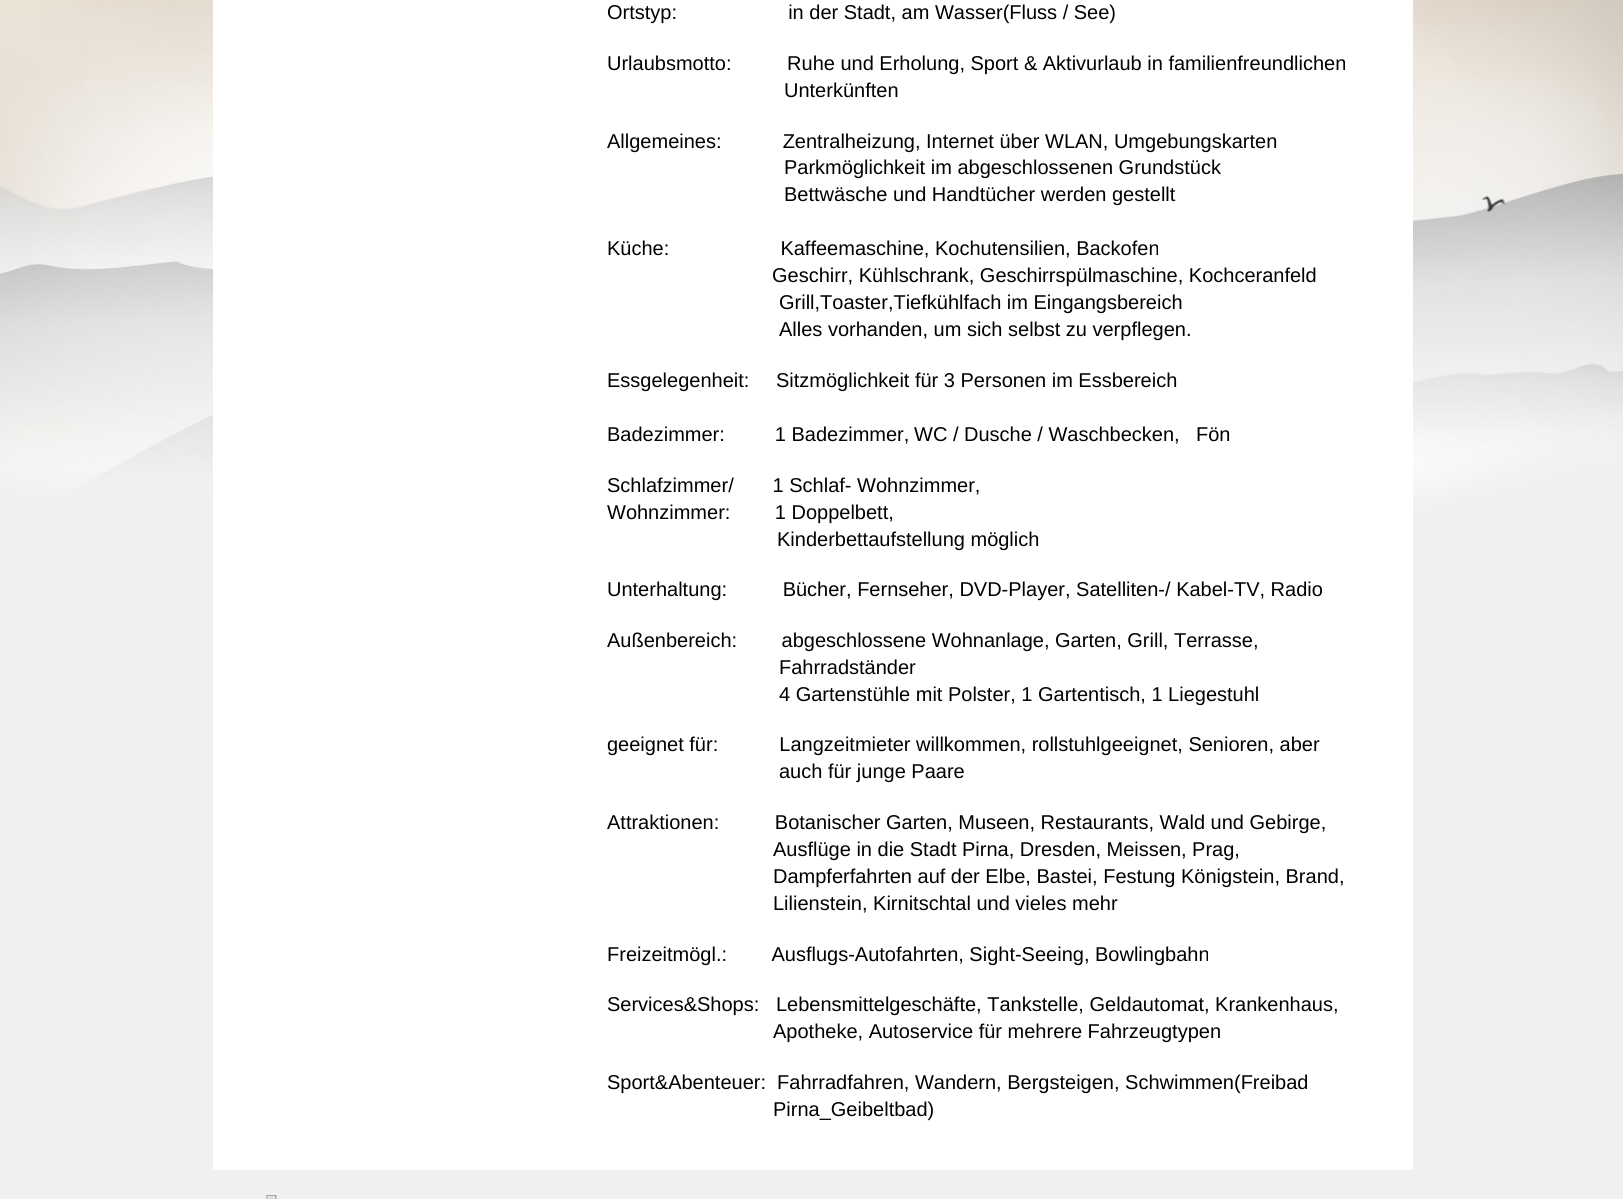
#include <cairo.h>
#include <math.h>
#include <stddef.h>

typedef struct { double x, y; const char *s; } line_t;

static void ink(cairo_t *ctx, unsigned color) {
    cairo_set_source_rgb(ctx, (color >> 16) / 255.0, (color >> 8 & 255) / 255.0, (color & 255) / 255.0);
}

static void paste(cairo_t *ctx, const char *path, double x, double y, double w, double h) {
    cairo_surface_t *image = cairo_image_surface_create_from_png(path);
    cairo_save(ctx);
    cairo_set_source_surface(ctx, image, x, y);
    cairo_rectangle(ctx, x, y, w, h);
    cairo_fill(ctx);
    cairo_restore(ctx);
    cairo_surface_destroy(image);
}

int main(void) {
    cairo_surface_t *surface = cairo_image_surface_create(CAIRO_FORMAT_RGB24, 1623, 1199);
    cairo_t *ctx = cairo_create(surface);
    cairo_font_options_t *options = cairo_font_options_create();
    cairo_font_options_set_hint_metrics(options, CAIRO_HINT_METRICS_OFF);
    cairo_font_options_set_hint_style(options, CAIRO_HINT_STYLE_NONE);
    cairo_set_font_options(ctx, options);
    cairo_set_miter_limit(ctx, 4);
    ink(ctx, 0xF1F0EE);
    cairo_paint(ctx);
    paste(ctx, "media/1.png", 0, 0, 1623, 584);
    ink(ctx, 0xFFFFFF);
    cairo_rectangle(ctx, 213, 0, 1200, 1170);
    cairo_fill(ctx);
    cairo_select_font_face(ctx, "Liberation Sans", CAIRO_FONT_SLANT_NORMAL, CAIRO_FONT_WEIGHT_NORMAL);
    cairo_set_font_size(ctx, 20);
    ink(ctx, 0x000000);
    {
        static const line_t items[] = {
            {607, 19, "Ortstyp:                    in der Stadt, am Wasser(Fluss / See)"},
            {607, 70, "Urlaubsmotto:          Ruhe und Erholung, Sport & Aktivurlaub in familienfreundlichen"},
            {784, 97, "Unterkünften"},
            {607, 148, "Allgemeines:           Zentralheizung, Internet über WLAN, Umgebungskarten"},
            {784, 174, "Parkmöglichkeit im abgeschlossenen Grundstück"},
            {784, 201, "Bettwäsche und Handtücher werden gestellt"},
            {607, 255, "Küche:                    Kaffeemaschine, Kochutensilien, Backofen"},
            {772, 282, "Geschirr, Kühlschrank, Geschirrspülmaschine, Kochceranfeld"},
            {779, 309, "Grill,Toaster,Tiefkühlfach im Eingangsbereich"},
            {779, 336, "Alles vorhanden, um sich selbst zu verpflegen."},
            {607, 387, "Essgelegenheit:"},
            {776, 387, "Sitzmöglichkeit für 3 Personen im Essbereich"},
            {607, 441, "Badezimmer:         1 Badezimmer,"},
            {914, 441, "WC / Dusche / Waschbecken,"},
            {1196, 441, "Fön"},
            {607, 492, "Schlafzimmer/       1 Schlaf- Wohnzimmer,"},
            {607, 519, "Wohnzimmer:        1 Doppelbett,"},
            {777, 546, "Kinderbettaufstellung möglich"},
            {607, 596, "Unterhaltung:          Bücher, Fernseher, DVD-Player, Satelliten-/ Kabel-TV, Radio"},
            {607, 647, "Außenbereich:        abgeschlossene Wohnanlage, Garten, Grill, Terrasse,"},
            {779, 674, "Fahrradständer"},
            {779, 701, "4 Gartenstühle mit Polster, 1 Gartentisch, 1 Liegestuhl"},
            {607, 751, "geeignet für:           Langzeitmieter willkommen, rollstuhlgeeignet, Senioren, aber"},
            {779, 778, "auch für junge Paare"},
            {607, 829, "Attraktionen:          Botanischer Garten, Museen, Restaurants, Wald und Gebirge,"},
            {773, 856, "Ausflüge in die Stadt Pirna, Dresden, Meissen, Prag,"},
            {773, 883, "Dampferfahrten auf der Elbe, Bastei, Festung Königstein, Brand,"},
            {773, 910, "Lilienstein, Kirnitschtal und vieles mehr"},
            {607, 961, "Freizeitmögl.:        Ausflugs-Autofahrten, Sight-Seeing, Bowlingbahn"},
            {607, 1011, "Services&Shops:   Lebensmittelgeschäfte, Tankstelle, Geldautomat, Krankenhaus,"},
            {773, 1038, "Apotheke, Autoservice für mehrere Fahrzeugtypen"},
            {607, 1089, "Sport&Abenteuer:  Fahrradfahren, Wandern, Bergsteigen, Schwimmen(Freibad"},
            {773, 1116, "Pirna_Geibeltbad)"},
        };
        for (size_t i = 0; i < sizeof items / sizeof *items; i++) {
            cairo_move_to(ctx, items[i].x, items[i].y);
            cairo_show_text(ctx, items[i].s);
        }
    }
    paste(ctx, "media/2.png", 266, 1195, 11, 4);
    cairo_surface_write_to_png(surface, "image.png");
    cairo_font_options_destroy(options);
    cairo_destroy(ctx);
    cairo_surface_destroy(surface);
    return 0;
}
